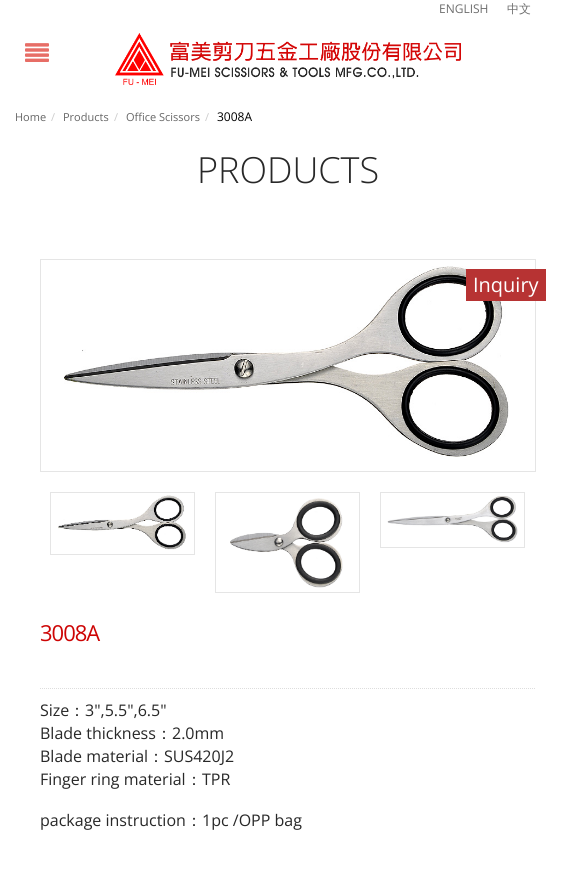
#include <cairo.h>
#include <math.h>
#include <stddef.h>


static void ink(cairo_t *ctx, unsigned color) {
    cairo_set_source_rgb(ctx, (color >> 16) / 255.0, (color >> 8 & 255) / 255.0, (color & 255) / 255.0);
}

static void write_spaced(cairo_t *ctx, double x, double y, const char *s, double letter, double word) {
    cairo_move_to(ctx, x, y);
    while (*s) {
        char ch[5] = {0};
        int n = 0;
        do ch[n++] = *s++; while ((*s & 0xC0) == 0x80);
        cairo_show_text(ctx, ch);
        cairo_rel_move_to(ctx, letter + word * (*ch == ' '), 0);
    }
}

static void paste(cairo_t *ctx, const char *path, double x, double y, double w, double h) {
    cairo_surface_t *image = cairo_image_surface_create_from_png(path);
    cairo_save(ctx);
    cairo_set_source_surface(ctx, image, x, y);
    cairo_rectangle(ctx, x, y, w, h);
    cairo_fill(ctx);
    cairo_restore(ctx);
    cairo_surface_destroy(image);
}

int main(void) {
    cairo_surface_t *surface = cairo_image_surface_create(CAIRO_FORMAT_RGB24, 576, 896);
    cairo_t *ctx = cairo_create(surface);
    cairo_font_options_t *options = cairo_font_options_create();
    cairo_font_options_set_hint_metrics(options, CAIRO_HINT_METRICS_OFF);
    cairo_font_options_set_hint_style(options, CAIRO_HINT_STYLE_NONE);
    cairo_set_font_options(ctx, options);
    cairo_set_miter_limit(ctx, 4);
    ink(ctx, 0xFFFFFF);
    cairo_paint(ctx);
    cairo_select_font_face(ctx, "Open Sans", CAIRO_FONT_SLANT_NORMAL, CAIRO_FONT_WEIGHT_NORMAL);
    cairo_set_font_size(ctx, 12);
    ink(ctx, 0x6E6E6E);
    cairo_move_to(ctx, 439, 13);
    cairo_show_text(ctx, "ENGLISH");
    cairo_select_font_face(ctx, "WenQuanYi Zen Hei Medium", CAIRO_FONT_SLANT_NORMAL, CAIRO_FONT_WEIGHT_NORMAL);
    cairo_move_to(ctx, 507, 13);
    cairo_show_text(ctx, "中文");
    paste(ctx, "media/1.png", 115, 33, 346, 52);
    paste(ctx, "media/2.png", 25, 43, 24, 19);
    cairo_select_font_face(ctx, "Open Sans", CAIRO_FONT_SLANT_NORMAL, CAIRO_FONT_WEIGHT_NORMAL);
    cairo_set_font_size(ctx, 11);
    ink(ctx, 0x666666);
    cairo_move_to(ctx, 15, 121);
    cairo_show_text(ctx, "Home");
    ink(ctx, 0xCCCCCC);
    cairo_move_to(ctx, 51, 121);
    cairo_show_text(ctx, "/");
    ink(ctx, 0x666666);
    cairo_move_to(ctx, 63, 121);
    cairo_show_text(ctx, "Products");
    ink(ctx, 0xCCCCCC);
    cairo_move_to(ctx, 114, 121);
    cairo_show_text(ctx, "/");
    ink(ctx, 0x666666);
    cairo_move_to(ctx, 126, 121);
    cairo_show_text(ctx, "Office Scissors");
    ink(ctx, 0xCCCCCC);
    cairo_move_to(ctx, 205, 121);
    cairo_show_text(ctx, "/");
    cairo_set_font_size(ctx, 12);
    ink(ctx, 0x000000);
    cairo_move_to(ctx, 217, 121);
    cairo_show_text(ctx, "3008A");
    cairo_select_font_face(ctx, "Open Sans Light", CAIRO_FONT_SLANT_NORMAL, CAIRO_FONT_WEIGHT_NORMAL);
    cairo_set_font_size(ctx, 36);
    ink(ctx, 0x282828);
    cairo_move_to(ctx, 197, 183);
    cairo_show_text(ctx, "PRODUCTS");
    cairo_rectangle(ctx, 40.5, 259.5, 495, 212);
    ink(ctx, 0xE5E5E5);
    cairo_set_line_width(ctx, 1);
    cairo_stroke(ctx);
    paste(ctx, "media/3.png", 64, 266, 445, 191);
    ink(ctx, 0xB73333);
    cairo_rectangle(ctx, 466, 269, 80, 32);
    cairo_fill(ctx);
    cairo_select_font_face(ctx, "Open Sans", CAIRO_FONT_SLANT_NORMAL, CAIRO_FONT_WEIGHT_NORMAL);
    cairo_set_font_size(ctx, 20);
    ink(ctx, 0xFFFFFF);
    cairo_move_to(ctx, 473, 292);
    cairo_show_text(ctx, "Inquiry");
    cairo_rectangle(ctx, 50.5, 492.5, 144, 62);
    ink(ctx, 0xE5E5E5);
    cairo_stroke(ctx);
    paste(ctx, "media/4.png", 58, 495, 128, 55);
    cairo_rectangle(ctx, 215.5, 492.5, 144, 100);
    cairo_stroke(ctx);
    paste(ctx, "media/5.png", 230, 498, 113, 90);
    cairo_rectangle(ctx, 380.5, 492.5, 144, 55);
    cairo_stroke(ctx);
    paste(ctx, "media/6.png", 387, 496, 131, 47);
    cairo_set_font_size(ctx, 22);
    ink(ctx, 0xCD0404);
    write_spaced(ctx, 40, 641, "3008A", -1, 0);
    cairo_new_path(ctx);
    cairo_move_to(ctx, 40, 688.5);
    cairo_line_to(ctx, 536, 688.5);
    ink(ctx, 0xDDDDDD);
    cairo_set_dash(ctx, (double[]){1, 1}, 2, 0);
    cairo_stroke(ctx);
    cairo_set_font_size(ctx, 16);
    ink(ctx, 0x282828);
    cairo_move_to(ctx, 40, 716);
    cairo_show_text(ctx, "Size");
    cairo_select_font_face(ctx, "WenQuanYi Zen Hei Medium", CAIRO_FONT_SLANT_NORMAL, CAIRO_FONT_WEIGHT_NORMAL);
    cairo_move_to(ctx, 69, 716);
    cairo_show_text(ctx, "：");
    cairo_select_font_face(ctx, "Open Sans", CAIRO_FONT_SLANT_NORMAL, CAIRO_FONT_WEIGHT_NORMAL);
    cairo_move_to(ctx, 85, 716);
    cairo_show_text(ctx, "3\",5.5\",6.5\"");
    cairo_move_to(ctx, 40, 739);
    cairo_show_text(ctx, "Blade thickness");
    cairo_select_font_face(ctx, "WenQuanYi Zen Hei Medium", CAIRO_FONT_SLANT_NORMAL, CAIRO_FONT_WEIGHT_NORMAL);
    cairo_move_to(ctx, 156, 739);
    cairo_show_text(ctx, "：");
    cairo_select_font_face(ctx, "Open Sans", CAIRO_FONT_SLANT_NORMAL, CAIRO_FONT_WEIGHT_NORMAL);
    cairo_move_to(ctx, 172, 739);
    cairo_show_text(ctx, "2.0mm");
    cairo_move_to(ctx, 40, 762);
    cairo_show_text(ctx, "Blade material");
    cairo_select_font_face(ctx, "WenQuanYi Zen Hei Medium", CAIRO_FONT_SLANT_NORMAL, CAIRO_FONT_WEIGHT_NORMAL);
    cairo_move_to(ctx, 148, 762);
    cairo_show_text(ctx, "：");
    cairo_select_font_face(ctx, "Open Sans", CAIRO_FONT_SLANT_NORMAL, CAIRO_FONT_WEIGHT_NORMAL);
    cairo_move_to(ctx, 164, 762);
    cairo_show_text(ctx, "SUS420J2");
    cairo_move_to(ctx, 40, 785);
    cairo_show_text(ctx, "Finger ring material");
    cairo_select_font_face(ctx, "WenQuanYi Zen Hei Medium", CAIRO_FONT_SLANT_NORMAL, CAIRO_FONT_WEIGHT_NORMAL);
    cairo_move_to(ctx, 186, 785);
    cairo_show_text(ctx, "：");
    cairo_select_font_face(ctx, "Open Sans", CAIRO_FONT_SLANT_NORMAL, CAIRO_FONT_WEIGHT_NORMAL);
    cairo_move_to(ctx, 202, 785);
    cairo_show_text(ctx, "TPR");
    cairo_move_to(ctx, 40, 826);
    cairo_show_text(ctx, "package instruction");
    cairo_select_font_face(ctx, "WenQuanYi Zen Hei Medium", CAIRO_FONT_SLANT_NORMAL, CAIRO_FONT_WEIGHT_NORMAL);
    cairo_move_to(ctx, 186, 826);
    cairo_show_text(ctx, "：");
    cairo_select_font_face(ctx, "Open Sans", CAIRO_FONT_SLANT_NORMAL, CAIRO_FONT_WEIGHT_NORMAL);
    cairo_move_to(ctx, 202, 826);
    cairo_show_text(ctx, "1pc /OPP bag");
    cairo_surface_write_to_png(surface, "image.png");
    cairo_font_options_destroy(options);
    cairo_destroy(ctx);
    cairo_surface_destroy(surface);
    return 0;
}
